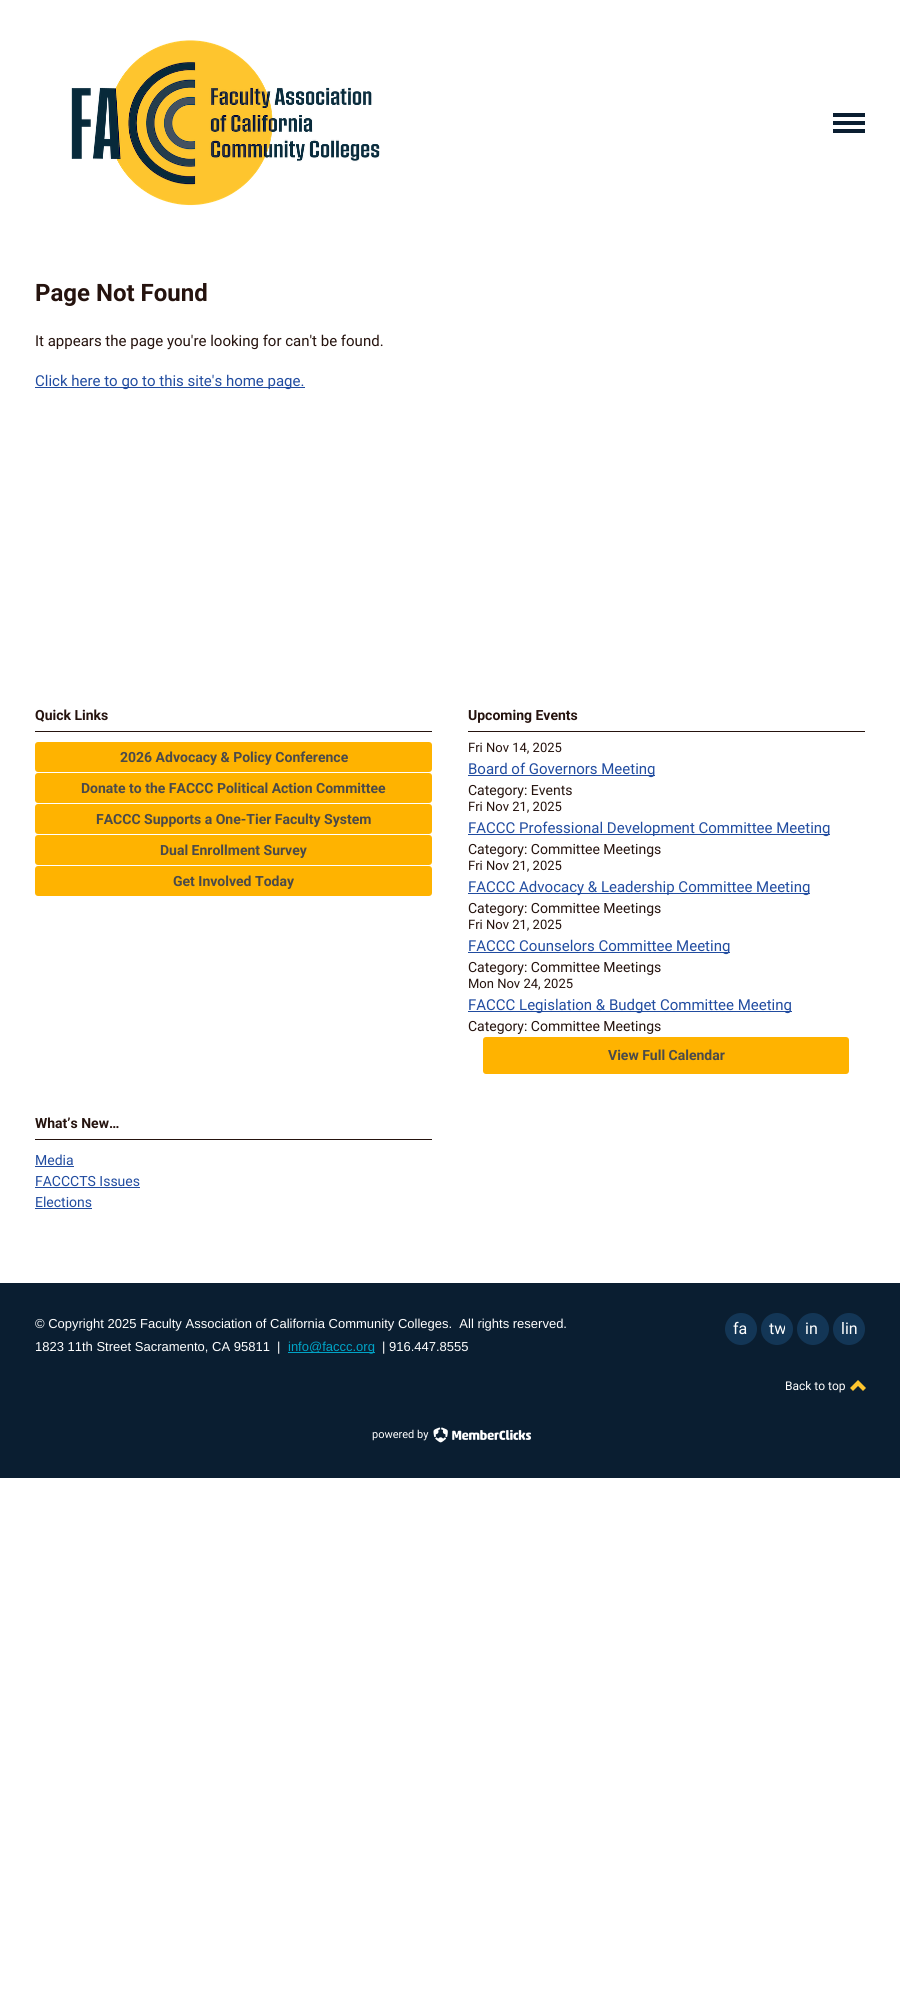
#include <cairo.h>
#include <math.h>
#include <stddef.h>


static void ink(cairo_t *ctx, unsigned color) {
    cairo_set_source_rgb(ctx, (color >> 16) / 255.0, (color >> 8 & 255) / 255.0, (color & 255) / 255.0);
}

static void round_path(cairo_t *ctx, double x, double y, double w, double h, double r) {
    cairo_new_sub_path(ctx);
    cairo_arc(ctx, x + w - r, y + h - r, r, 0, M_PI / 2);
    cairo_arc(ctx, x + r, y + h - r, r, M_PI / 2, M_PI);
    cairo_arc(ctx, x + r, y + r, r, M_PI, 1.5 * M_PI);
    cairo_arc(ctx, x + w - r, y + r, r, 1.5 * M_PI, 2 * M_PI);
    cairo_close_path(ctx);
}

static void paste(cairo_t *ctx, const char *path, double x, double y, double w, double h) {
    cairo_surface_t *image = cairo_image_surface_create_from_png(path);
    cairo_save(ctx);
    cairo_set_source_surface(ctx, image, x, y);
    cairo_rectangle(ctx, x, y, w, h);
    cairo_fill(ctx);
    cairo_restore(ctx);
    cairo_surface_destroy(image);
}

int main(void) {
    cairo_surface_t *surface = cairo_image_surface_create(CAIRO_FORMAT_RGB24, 900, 1992);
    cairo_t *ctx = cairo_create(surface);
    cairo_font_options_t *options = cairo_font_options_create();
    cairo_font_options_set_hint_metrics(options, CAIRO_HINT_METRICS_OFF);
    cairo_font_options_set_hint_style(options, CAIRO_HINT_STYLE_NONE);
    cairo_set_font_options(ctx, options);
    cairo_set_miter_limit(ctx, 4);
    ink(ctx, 0xFFFFFF);
    cairo_paint(ctx);
    paste(ctx, "media/1.png", 71, 40, 309, 166);
    paste(ctx, "media/2.png", 833, 113, 32, 20);
    cairo_select_font_face(ctx, "Roboto", CAIRO_FONT_SLANT_NORMAL, CAIRO_FONT_WEIGHT_BOLD);
    cairo_set_font_size(ctx, 24);
    ink(ctx, 0x25130E);
    cairo_move_to(ctx, 35, 301);
    cairo_show_text(ctx, "Page Not Found");
    cairo_select_font_face(ctx, "Roboto", CAIRO_FONT_SLANT_NORMAL, CAIRO_FONT_WEIGHT_NORMAL);
    cairo_set_font_size(ctx, 15);
    cairo_move_to(ctx, 35, 346);
    cairo_show_text(ctx, "It appears the page you're looking for can't be found.");
    ink(ctx, 0x214CA0);
    cairo_rectangle(ctx, 35, 387, 270, 1);
    cairo_fill(ctx);
    cairo_move_to(ctx, 35, 386);
    cairo_show_text(ctx, "Click here to go to this site's home page.");
    ink(ctx, 0x25130E);
    cairo_rectangle(ctx, 35, 731, 397, 1);
    cairo_fill(ctx);
    cairo_select_font_face(ctx, "Roboto", CAIRO_FONT_SLANT_NORMAL, CAIRO_FONT_WEIGHT_BOLD);
    cairo_set_font_size(ctx, 14);
    cairo_move_to(ctx, 35, 720);
    cairo_show_text(ctx, "Quick Links");
    ink(ctx, 0xFFB300);
    round_path(ctx, 35, 742, 397, 30, 3);
    cairo_fill(ctx);
    ink(ctx, 0x4A4A4A);
    cairo_move_to(ctx, 120, 762);
    cairo_show_text(ctx, "2026 Advocacy & Policy Conference");
    ink(ctx, 0xFFB300);
    round_path(ctx, 35, 773, 397, 30, 3);
    cairo_fill(ctx);
    ink(ctx, 0x4A4A4A);
    cairo_move_to(ctx, 81, 793);
    cairo_show_text(ctx, "Donate to the FACCC Political Action Committee");
    ink(ctx, 0xFFB300);
    round_path(ctx, 35, 804, 397, 30, 3);
    cairo_fill(ctx);
    ink(ctx, 0x4A4A4A);
    cairo_move_to(ctx, 96, 824);
    cairo_show_text(ctx, "FACCC Supports a One-Tier Faculty System");
    ink(ctx, 0xFFB300);
    round_path(ctx, 35, 835, 397, 30, 3);
    cairo_fill(ctx);
    ink(ctx, 0x4A4A4A);
    cairo_move_to(ctx, 160, 855);
    cairo_show_text(ctx, "Dual Enrollment Survey");
    ink(ctx, 0xFFB300);
    round_path(ctx, 35, 866, 397, 30, 3);
    cairo_fill(ctx);
    ink(ctx, 0x4A4A4A);
    cairo_move_to(ctx, 173, 886);
    cairo_show_text(ctx, "Get Involved Today");
    ink(ctx, 0x25130E);
    cairo_rectangle(ctx, 468, 731, 397, 1);
    cairo_fill(ctx);
    cairo_move_to(ctx, 468, 720);
    cairo_show_text(ctx, "Upcoming Events");
    cairo_select_font_face(ctx, "Roboto", CAIRO_FONT_SLANT_NORMAL, CAIRO_FONT_WEIGHT_NORMAL);
    cairo_set_font_size(ctx, 13);
    cairo_move_to(ctx, 468, 752);
    cairo_show_text(ctx, "Fri Nov 14, 2025");
    ink(ctx, 0x214CA0);
    cairo_rectangle(ctx, 468, 775, 187, 1);
    cairo_fill(ctx);
    cairo_set_font_size(ctx, 15);
    cairo_move_to(ctx, 468, 774);
    cairo_show_text(ctx, "Board of Governors Meeting");
    cairo_set_font_size(ctx, 14);
    ink(ctx, 0x25130E);
    cairo_move_to(ctx, 468, 795);
    cairo_show_text(ctx, "Category: Events");
    cairo_set_font_size(ctx, 13);
    cairo_move_to(ctx, 468, 811);
    cairo_show_text(ctx, "Fri Nov 21, 2025");
    ink(ctx, 0x214CA0);
    cairo_rectangle(ctx, 468, 834, 362, 1);
    cairo_fill(ctx);
    cairo_set_font_size(ctx, 15);
    cairo_move_to(ctx, 468, 833);
    cairo_show_text(ctx, "FACCC Professional Development Committee Meeting");
    cairo_set_font_size(ctx, 14);
    ink(ctx, 0x25130E);
    cairo_move_to(ctx, 468, 854);
    cairo_show_text(ctx, "Category: Committee Meetings");
    cairo_set_font_size(ctx, 13);
    cairo_move_to(ctx, 468, 870);
    cairo_show_text(ctx, "Fri Nov 21, 2025");
    ink(ctx, 0x214CA0);
    cairo_rectangle(ctx, 468, 893, 342, 1);
    cairo_fill(ctx);
    cairo_set_font_size(ctx, 15);
    cairo_move_to(ctx, 468, 892);
    cairo_show_text(ctx, "FACCC Advocacy & Leadership Committee Meeting");
    cairo_set_font_size(ctx, 14);
    ink(ctx, 0x25130E);
    cairo_move_to(ctx, 468, 913);
    cairo_show_text(ctx, "Category: Committee Meetings");
    cairo_set_font_size(ctx, 13);
    cairo_move_to(ctx, 468, 929);
    cairo_show_text(ctx, "Fri Nov 21, 2025");
    ink(ctx, 0x214CA0);
    cairo_rectangle(ctx, 468, 952, 262, 1);
    cairo_fill(ctx);
    cairo_set_font_size(ctx, 15);
    cairo_move_to(ctx, 468, 951);
    cairo_show_text(ctx, "FACCC Counselors Committee Meeting");
    cairo_set_font_size(ctx, 14);
    ink(ctx, 0x25130E);
    cairo_move_to(ctx, 468, 972);
    cairo_show_text(ctx, "Category: Committee Meetings");
    cairo_set_font_size(ctx, 13);
    cairo_move_to(ctx, 468, 988);
    cairo_show_text(ctx, "Mon Nov 24, 2025");
    ink(ctx, 0x214CA0);
    cairo_rectangle(ctx, 468, 1011, 324, 1);
    cairo_fill(ctx);
    cairo_set_font_size(ctx, 15);
    cairo_move_to(ctx, 468, 1010);
    cairo_show_text(ctx, "FACCC Legislation & Budget Committee Meeting");
    cairo_set_font_size(ctx, 14);
    ink(ctx, 0x25130E);
    cairo_move_to(ctx, 468, 1031);
    cairo_show_text(ctx, "Category: Committee Meetings");
    ink(ctx, 0xFFB300);
    round_path(ctx, 483, 1037, 366, 37, 3);
    cairo_fill(ctx);
    cairo_select_font_face(ctx, "Roboto", CAIRO_FONT_SLANT_NORMAL, CAIRO_FONT_WEIGHT_BOLD);
    ink(ctx, 0x4A4A4A);
    cairo_move_to(ctx, 608, 1060);
    cairo_show_text(ctx, "View Full Calendar");
    ink(ctx, 0x25130E);
    cairo_rectangle(ctx, 35, 1139, 397, 1);
    cairo_fill(ctx);
    cairo_move_to(ctx, 35, 1128);
    cairo_show_text(ctx, "What’s New…");
    cairo_select_font_face(ctx, "Roboto", CAIRO_FONT_SLANT_NORMAL, CAIRO_FONT_WEIGHT_NORMAL);
    ink(ctx, 0x214CA0);
    cairo_move_to(ctx, 35, 1165);
    cairo_show_text(ctx, "Media");
    cairo_rectangle(ctx, 35, 1166, 39, 1);
    cairo_fill(ctx);
    cairo_move_to(ctx, 35, 1186);
    cairo_show_text(ctx, "FACCCTS Issues");
    cairo_rectangle(ctx, 35, 1187, 105, 1);
    cairo_fill(ctx);
    cairo_move_to(ctx, 35, 1207);
    cairo_show_text(ctx, "Elections");
    cairo_rectangle(ctx, 35, 1208, 57, 1);
    cairo_fill(ctx);
    ink(ctx, 0x0A1E31);
    cairo_rectangle(ctx, 0, 1283, 900, 195);
    cairo_fill(ctx);
    cairo_select_font_face(ctx, "Liberation Sans", CAIRO_FONT_SLANT_NORMAL, CAIRO_FONT_WEIGHT_NORMAL);
    cairo_set_font_size(ctx, 13);
    ink(ctx, 0xFFFFFF);
    cairo_move_to(ctx, 35, 1328);
    cairo_show_text(ctx, "© Copyright 2025 Faculty Association of California Community Colleges.  All rights reserved.");
    cairo_move_to(ctx, 35, 1351);
    cairo_show_text(ctx, "1823 11th Street Sacramento, CA 95811  |");
    ink(ctx, 0x00A4C7);
    cairo_rectangle(ctx, 288, 1352, 87, 1);
    cairo_fill(ctx);
    cairo_move_to(ctx, 288, 1351);
    cairo_show_text(ctx, "info@faccc.org");
    ink(ctx, 0xFFFFFF);
    cairo_move_to(ctx, 382, 1351);
    cairo_show_text(ctx, "| 916.447.8555");
    ink(ctx, 0x133656);
    cairo_new_path(ctx);
    cairo_arc(ctx, 741, 1329, 16, 0, 2 * M_PI);
    cairo_fill(ctx);
    cairo_select_font_face(ctx, "Roboto", CAIRO_FONT_SLANT_NORMAL, CAIRO_FONT_WEIGHT_NORMAL);
    cairo_set_font_size(ctx, 16);
    ink(ctx, 0xFFFFFF);
    cairo_move_to(ctx, 733, 1334);
    cairo_show_text(ctx, "fa");
    ink(ctx, 0x133656);
    cairo_new_path(ctx);
    cairo_arc(ctx, 777, 1329, 16, 0, 2 * M_PI);
    cairo_fill(ctx);
    cairo_save(ctx);
    cairo_rectangle(ctx, 769, 1321, 16, 16);
    cairo_clip(ctx);
    ink(ctx, 0xFFFFFF);
    cairo_move_to(ctx, 769, 1334);
    cairo_show_text(ctx, "tw");
    cairo_restore(ctx);
    cairo_new_path(ctx);
    cairo_arc(ctx, 813, 1329, 16, 0, 2 * M_PI);
    cairo_fill(ctx);
    ink(ctx, 0xFFFFFF);
    cairo_move_to(ctx, 805, 1334);
    cairo_show_text(ctx, "in");
    ink(ctx, 0x133656);
    cairo_new_path(ctx);
    cairo_arc(ctx, 849, 1329, 16, 0, 2 * M_PI);
    cairo_fill(ctx);
    ink(ctx, 0xFFFFFF);
    cairo_move_to(ctx, 841, 1334);
    cairo_show_text(ctx, "lin");
    cairo_set_font_size(ctx, 12);
    cairo_move_to(ctx, 785, 1390);
    cairo_show_text(ctx, "Back to top");
    paste(ctx, "media/3.png", 850, 1380, 16, 11);
    cairo_set_font_size(ctx, 11);
    cairo_move_to(ctx, 372, 1438);
    cairo_show_text(ctx, "powered by");
    paste(ctx, "media/4.png", 433, 1427, 15, 16);
    paste(ctx, "media/5.png", 452, 1429, 79, 11);
    cairo_surface_write_to_png(surface, "image.png");
    cairo_font_options_destroy(options);
    cairo_destroy(ctx);
    cairo_surface_destroy(surface);
    return 0;
}
